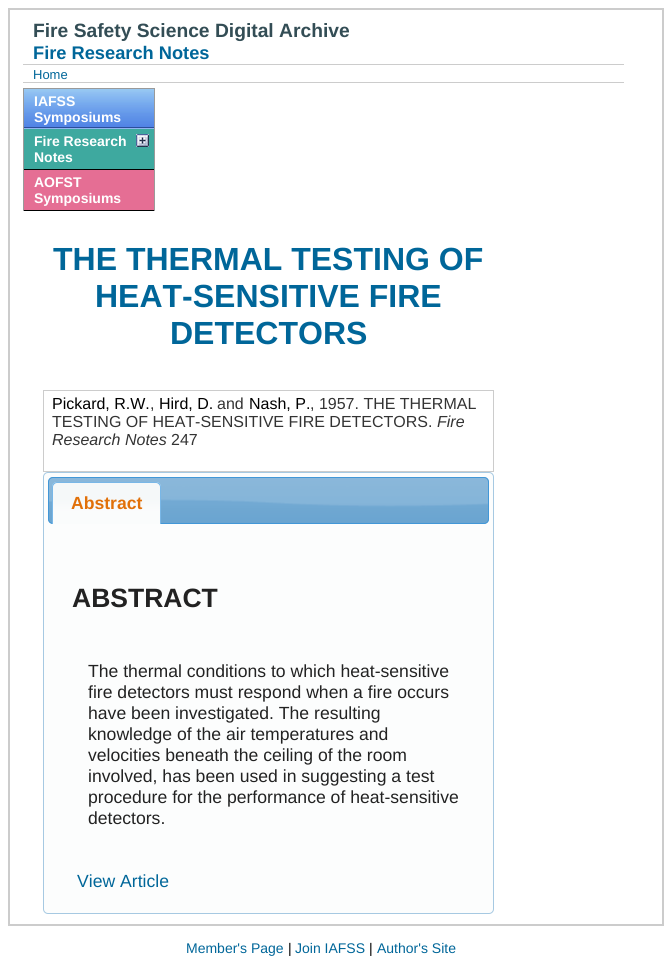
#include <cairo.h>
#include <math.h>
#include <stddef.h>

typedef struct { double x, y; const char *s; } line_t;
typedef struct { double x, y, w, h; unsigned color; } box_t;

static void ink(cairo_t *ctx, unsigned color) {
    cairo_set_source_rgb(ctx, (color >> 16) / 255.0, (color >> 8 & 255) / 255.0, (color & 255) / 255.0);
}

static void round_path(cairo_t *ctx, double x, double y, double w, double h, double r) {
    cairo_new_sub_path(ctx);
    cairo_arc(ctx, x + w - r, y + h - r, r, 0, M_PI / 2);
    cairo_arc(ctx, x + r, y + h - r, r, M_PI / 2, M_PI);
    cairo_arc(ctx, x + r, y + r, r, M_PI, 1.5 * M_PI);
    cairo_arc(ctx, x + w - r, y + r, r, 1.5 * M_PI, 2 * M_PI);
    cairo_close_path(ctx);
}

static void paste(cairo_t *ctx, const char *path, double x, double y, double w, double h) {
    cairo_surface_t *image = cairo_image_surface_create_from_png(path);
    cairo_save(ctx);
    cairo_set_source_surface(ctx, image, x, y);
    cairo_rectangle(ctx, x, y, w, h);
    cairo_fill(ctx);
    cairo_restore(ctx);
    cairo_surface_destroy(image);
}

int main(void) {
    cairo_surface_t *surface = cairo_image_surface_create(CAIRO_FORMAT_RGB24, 668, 960);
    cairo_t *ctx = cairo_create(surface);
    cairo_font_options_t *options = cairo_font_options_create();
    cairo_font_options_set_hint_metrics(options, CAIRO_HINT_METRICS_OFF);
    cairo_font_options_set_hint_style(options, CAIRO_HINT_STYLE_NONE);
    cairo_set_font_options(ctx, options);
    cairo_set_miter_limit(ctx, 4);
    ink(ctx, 0xFFFFFF);
    cairo_paint(ctx);
    cairo_rectangle(ctx, 9, 9, 654, 916);
    ink(ctx, 0xCCCCCC);
    cairo_stroke(ctx);
    cairo_rectangle(ctx, 23, 82, 601, 1);
    cairo_fill(ctx);
    cairo_select_font_face(ctx, "Liberation Sans", CAIRO_FONT_SLANT_NORMAL, CAIRO_FONT_WEIGHT_BOLD);
    cairo_set_font_size(ctx, 19.25);
    ink(ctx, 0x334D55);
    cairo_move_to(ctx, 33, 37);
    cairo_show_text(ctx, "Fire Safety Science Digital Archive");
    ink(ctx, 0xCCCCCC);
    cairo_rectangle(ctx, 23, 64, 601, 1);
    cairo_fill(ctx);
    cairo_set_font_size(ctx, 18.25);
    ink(ctx, 0x006699);
    cairo_move_to(ctx, 33, 59);
    cairo_show_text(ctx, "Fire Research Notes");
    cairo_select_font_face(ctx, "Liberation Sans", CAIRO_FONT_SLANT_NORMAL, CAIRO_FONT_WEIGHT_NORMAL);
    cairo_set_font_size(ctx, 13);
    cairo_move_to(ctx, 33, 79);
    cairo_show_text(ctx, "Home");
    {
        static const box_t items[] = {
            {23, 88, 132, 1, 0x9A9A9A},
            {154, 88, 1, 123, 0x9A9A9A},
            {23, 88, 1, 123, 0x9A9A9A},
        };
        for (size_t i = 0; i < sizeof items / sizeof *items; i++) {
            ink(ctx, items[i].color);
            cairo_rectangle(ctx, items[i].x, items[i].y, items[i].w, items[i].h);
            cairo_fill(ctx);
        }
    }
    paste(ctx, "media/1.png", 24, 89, 130, 40);
    cairo_select_font_face(ctx, "Liberation Sans", CAIRO_FONT_SLANT_NORMAL, CAIRO_FONT_WEIGHT_BOLD);
    cairo_set_font_size(ctx, 14);
    ink(ctx, 0xFFFFFF);
    cairo_move_to(ctx, 34, 106);
    cairo_show_text(ctx, "IAFSS");
    cairo_move_to(ctx, 34, 122);
    cairo_show_text(ctx, "Symposiums");
    ink(ctx, 0x3EA99F);
    cairo_rectangle(ctx, 24, 129, 130, 40);
    cairo_fill(ctx);
    ink(ctx, 0x000000);
    cairo_rectangle(ctx, 24, 169, 130, 1);
    cairo_fill(ctx);
    ink(ctx, 0xFFFFFF);
    cairo_move_to(ctx, 34, 146);
    cairo_show_text(ctx, "Fire Research");
    paste(ctx, "media/2.png", 136, 134, 13, 13);
    cairo_move_to(ctx, 34, 162);
    cairo_show_text(ctx, "Notes");
    ink(ctx, 0xE56E94);
    cairo_rectangle(ctx, 24, 170, 130, 40);
    cairo_fill(ctx);
    ink(ctx, 0x000000);
    cairo_rectangle(ctx, 24, 210, 130, 1);
    cairo_fill(ctx);
    ink(ctx, 0xFFFFFF);
    cairo_move_to(ctx, 34, 187);
    cairo_show_text(ctx, "AOFST");
    cairo_move_to(ctx, 34, 203);
    cairo_show_text(ctx, "Symposiums");
    cairo_set_font_size(ctx, 32);
    ink(ctx, 0x006699);
    {
        static const line_t items[] = {
            {53, 270, "THE THERMAL TESTING OF"},
            {95, 307, "HEAT-SENSITIVE FIRE"},
            {170, 344, "DETECTORS"},
        };
        for (size_t i = 0; i < sizeof items / sizeof *items; i++) {
            cairo_move_to(ctx, items[i].x, items[i].y);
            cairo_show_text(ctx, items[i].s);
        }
    }
    cairo_rectangle(ctx, 43.5, 390.5, 450, 81);
    ink(ctx, 0xCCCCCC);
    cairo_set_line_width(ctx, 1);
    cairo_stroke(ctx);
    cairo_select_font_face(ctx, "Liberation Sans", CAIRO_FONT_SLANT_NORMAL, CAIRO_FONT_WEIGHT_NORMAL);
    cairo_set_font_size(ctx, 16);
    ink(ctx, 0x000000);
    cairo_move_to(ctx, 52, 409);
    cairo_show_text(ctx, "Pickard, R.W.");
    ink(ctx, 0x333333);
    cairo_move_to(ctx, 150, 409);
    cairo_show_text(ctx, ",");
    ink(ctx, 0x000000);
    cairo_move_to(ctx, 159, 409);
    cairo_show_text(ctx, "Hird, D.");
    ink(ctx, 0x333333);
    cairo_move_to(ctx, 217, 409);
    cairo_show_text(ctx, "and");
    ink(ctx, 0x000000);
    cairo_move_to(ctx, 249, 409);
    cairo_show_text(ctx, "Nash, P.");
    ink(ctx, 0x333333);
    cairo_move_to(ctx, 310, 409);
    cairo_show_text(ctx, ", 1957. THE THERMAL");
    cairo_move_to(ctx, 52, 427);
    cairo_show_text(ctx, "TESTING OF HEAT-SENSITIVE FIRE DETECTORS.");
    cairo_select_font_face(ctx, "Liberation Sans", CAIRO_FONT_SLANT_ITALIC, CAIRO_FONT_WEIGHT_NORMAL);
    cairo_move_to(ctx, 437, 427);
    cairo_show_text(ctx, "Fire");
    cairo_move_to(ctx, 52, 445);
    cairo_show_text(ctx, "Research Notes");
    cairo_select_font_face(ctx, "Liberation Sans", CAIRO_FONT_SLANT_NORMAL, CAIRO_FONT_WEIGHT_NORMAL);
    cairo_move_to(ctx, 171, 445);
    cairo_show_text(ctx, "247");
    ink(ctx, 0xFCFDFD);
    round_path(ctx, 43.5, 472.5, 450, 441, 4.5);
    cairo_fill_preserve(ctx);
    ink(ctx, 0xA6C9E2);
    cairo_stroke(ctx);
    paste(ctx, "media/3.png", 48, 477, 441, 47);
    round_path(ctx, 48.5, 477.5, 440, 46, 4.5);
    ink(ctx, 0x4297D7);
    cairo_stroke(ctx);
    paste(ctx, "media/4.png", 52, 482, 109, 42);
    ink(ctx, 0x79B7E7);
    cairo_set_fill_rule(ctx, CAIRO_FILL_RULE_EVEN_ODD);
    cairo_new_path(ctx);
    cairo_move_to(ctx, 57, 482);
    cairo_line_to(ctx, 156, 482);
    cairo_curve_to(ctx, 159, 482, 161, 484, 161, 487);
    cairo_line_to(ctx, 161, 524);
    cairo_line_to(ctx, 52, 524);
    cairo_line_to(ctx, 52, 487);
    cairo_curve_to(ctx, 52, 484, 54, 482, 57, 482);
    cairo_close_path(ctx);
    cairo_move_to(ctx, 57, 483);
    cairo_line_to(ctx, 156, 483);
    cairo_curve_to(ctx, 158, 483, 160, 485, 160, 487);
    cairo_line_to(ctx, 160, 524);
    cairo_line_to(ctx, 53, 524);
    cairo_line_to(ctx, 53, 487);
    cairo_curve_to(ctx, 53, 485, 55, 483, 57, 483);
    cairo_close_path(ctx);
    cairo_fill(ctx);
    cairo_select_font_face(ctx, "Liberation Sans", CAIRO_FONT_SLANT_NORMAL, CAIRO_FONT_WEIGHT_BOLD);
    cairo_set_font_size(ctx, 17.6);
    ink(ctx, 0xE17009);
    cairo_move_to(ctx, 71, 509);
    cairo_show_text(ctx, "Abstract");
    cairo_set_font_size(ctx, 26.5);
    ink(ctx, 0x222222);
    cairo_move_to(ctx, 72, 607);
    cairo_show_text(ctx, "ABSTRACT");
    cairo_select_font_face(ctx, "Liberation Sans", CAIRO_FONT_SLANT_NORMAL, CAIRO_FONT_WEIGHT_NORMAL);
    cairo_set_font_size(ctx, 17.6);
    {
        static const line_t items[] = {
            {88, 677, "The thermal conditions to which heat-sensitive"},
            {88, 698, "fire detectors must respond when a fire occurs"},
            {88, 719, "have been investigated. The resulting"},
            {88, 740, "knowledge of the air temperatures and"},
            {88, 761, "velocities beneath the ceiling of the room"},
            {88, 782, "involved, has been used in suggesting a test"},
            {88, 803, "procedure for the performance of heat-sensitive"},
            {88, 824, "detectors."},
        };
        for (size_t i = 0; i < sizeof items / sizeof *items; i++) {
            cairo_move_to(ctx, items[i].x, items[i].y);
            cairo_show_text(ctx, items[i].s);
        }
    }
    ink(ctx, 0x006699);
    cairo_move_to(ctx, 77, 887);
    cairo_show_text(ctx, "View Article");
    cairo_set_font_size(ctx, 14);
    cairo_move_to(ctx, 186, 953);
    cairo_show_text(ctx, "Member's Page");
    ink(ctx, 0x000000);
    cairo_move_to(ctx, 288, 953);
    cairo_show_text(ctx, "|");
    ink(ctx, 0x006699);
    cairo_move_to(ctx, 295, 953);
    cairo_show_text(ctx, "Join IAFSS");
    ink(ctx, 0x000000);
    cairo_move_to(ctx, 369, 953);
    cairo_show_text(ctx, "|");
    ink(ctx, 0x006699);
    cairo_move_to(ctx, 377, 953);
    cairo_show_text(ctx, "Author's Site");
    cairo_surface_write_to_png(surface, "image.png");
    cairo_font_options_destroy(options);
    cairo_destroy(ctx);
    cairo_surface_destroy(surface);
    return 0;
}
